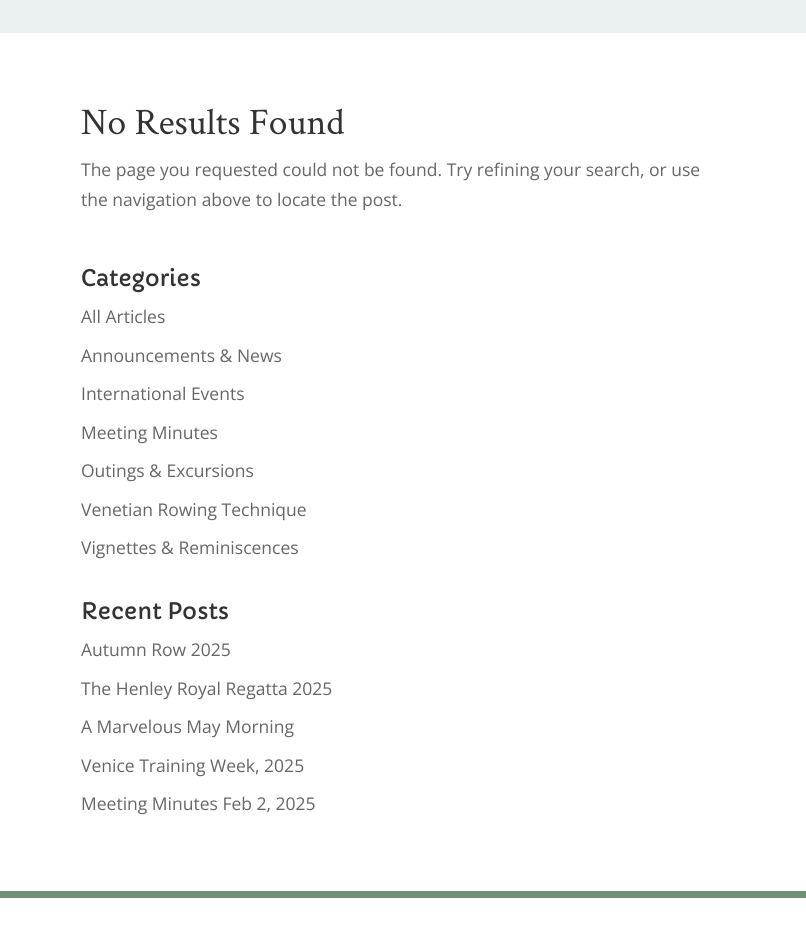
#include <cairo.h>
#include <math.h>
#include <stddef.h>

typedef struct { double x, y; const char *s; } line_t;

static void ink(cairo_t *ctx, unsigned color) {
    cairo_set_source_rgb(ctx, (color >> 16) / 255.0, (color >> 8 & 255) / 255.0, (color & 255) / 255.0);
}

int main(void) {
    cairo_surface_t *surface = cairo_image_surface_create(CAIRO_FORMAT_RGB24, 806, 940);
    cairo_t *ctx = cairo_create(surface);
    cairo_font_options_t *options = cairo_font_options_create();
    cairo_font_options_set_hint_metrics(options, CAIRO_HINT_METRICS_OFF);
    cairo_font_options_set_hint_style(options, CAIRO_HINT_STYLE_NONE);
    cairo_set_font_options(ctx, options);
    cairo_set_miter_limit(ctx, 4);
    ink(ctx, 0xEBF0F0);
    cairo_paint(ctx);
    ink(ctx, 0xFFFFFF);
    cairo_rectangle(ctx, 0, 33, 806, 858);
    cairo_fill(ctx);
    cairo_select_font_face(ctx, "Crimson Text", CAIRO_FONT_SLANT_NORMAL, CAIRO_FONT_WEIGHT_NORMAL);
    cairo_set_font_size(ctx, 37.5);
    ink(ctx, 0x333333);
    cairo_move_to(ctx, 81, 134);
    cairo_show_text(ctx, "No Results Found");
    cairo_select_font_face(ctx, "Open Sans", CAIRO_FONT_SLANT_NORMAL, CAIRO_FONT_WEIGHT_NORMAL);
    cairo_set_font_size(ctx, 17.5);
    ink(ctx, 0x666666);
    cairo_move_to(ctx, 81, 176);
    cairo_show_text(ctx, "The page you requested could not be found. Try refining your search, or use");
    cairo_move_to(ctx, 81, 206);
    cairo_show_text(ctx, "the navigation above to locate the post.");
    cairo_select_font_face(ctx, "Capriola", CAIRO_FONT_SLANT_NORMAL, CAIRO_FONT_WEIGHT_NORMAL);
    cairo_set_font_size(ctx, 22.5);
    ink(ctx, 0x333333);
    cairo_move_to(ctx, 81, 286);
    cairo_show_text(ctx, "Categories");
    cairo_select_font_face(ctx, "Open Sans", CAIRO_FONT_SLANT_NORMAL, CAIRO_FONT_WEIGHT_NORMAL);
    cairo_set_font_size(ctx, 17.5);
    ink(ctx, 0x666666);
    {
        static const line_t items[] = {
            {81, 323, "All Articles"},
            {81, 362, "Announcements & News"},
            {81, 400, "International Events"},
            {81, 439, "Meeting Minutes"},
            {81, 477, "Outings & Excursions"},
            {81, 516, "Venetian Rowing Technique"},
            {81, 554, "Vignettes & Reminiscences"},
        };
        for (size_t i = 0; i < sizeof items / sizeof *items; i++) {
            cairo_move_to(ctx, items[i].x, items[i].y);
            cairo_show_text(ctx, items[i].s);
        }
    }
    cairo_select_font_face(ctx, "Capriola", CAIRO_FONT_SLANT_NORMAL, CAIRO_FONT_WEIGHT_NORMAL);
    cairo_set_font_size(ctx, 22.5);
    ink(ctx, 0x333333);
    cairo_move_to(ctx, 81, 619);
    cairo_show_text(ctx, "Recent Posts");
    cairo_select_font_face(ctx, "Open Sans", CAIRO_FONT_SLANT_NORMAL, CAIRO_FONT_WEIGHT_NORMAL);
    cairo_set_font_size(ctx, 17.5);
    ink(ctx, 0x666666);
    {
        static const line_t items[] = {
            {81, 656, "Autumn Row 2025"},
            {81, 695, "The Henley Royal Regatta 2025"},
            {81, 733, "A Marvelous May Morning"},
            {81, 772, "Venice Training Week, 2025"},
            {81, 810, "Meeting Minutes Feb 2, 2025"},
        };
        for (size_t i = 0; i < sizeof items / sizeof *items; i++) {
            cairo_move_to(ctx, items[i].x, items[i].y);
            cairo_show_text(ctx, items[i].s);
        }
    }
    ink(ctx, 0xFFFFFF);
    cairo_rectangle(ctx, 0, 898, 806, 42);
    cairo_fill(ctx);
    ink(ctx, 0x709176);
    cairo_rectangle(ctx, 0, 891, 806, 7);
    cairo_fill(ctx);
    cairo_surface_write_to_png(surface, "image.png");
    cairo_font_options_destroy(options);
    cairo_destroy(ctx);
    cairo_surface_destroy(surface);
    return 0;
}
